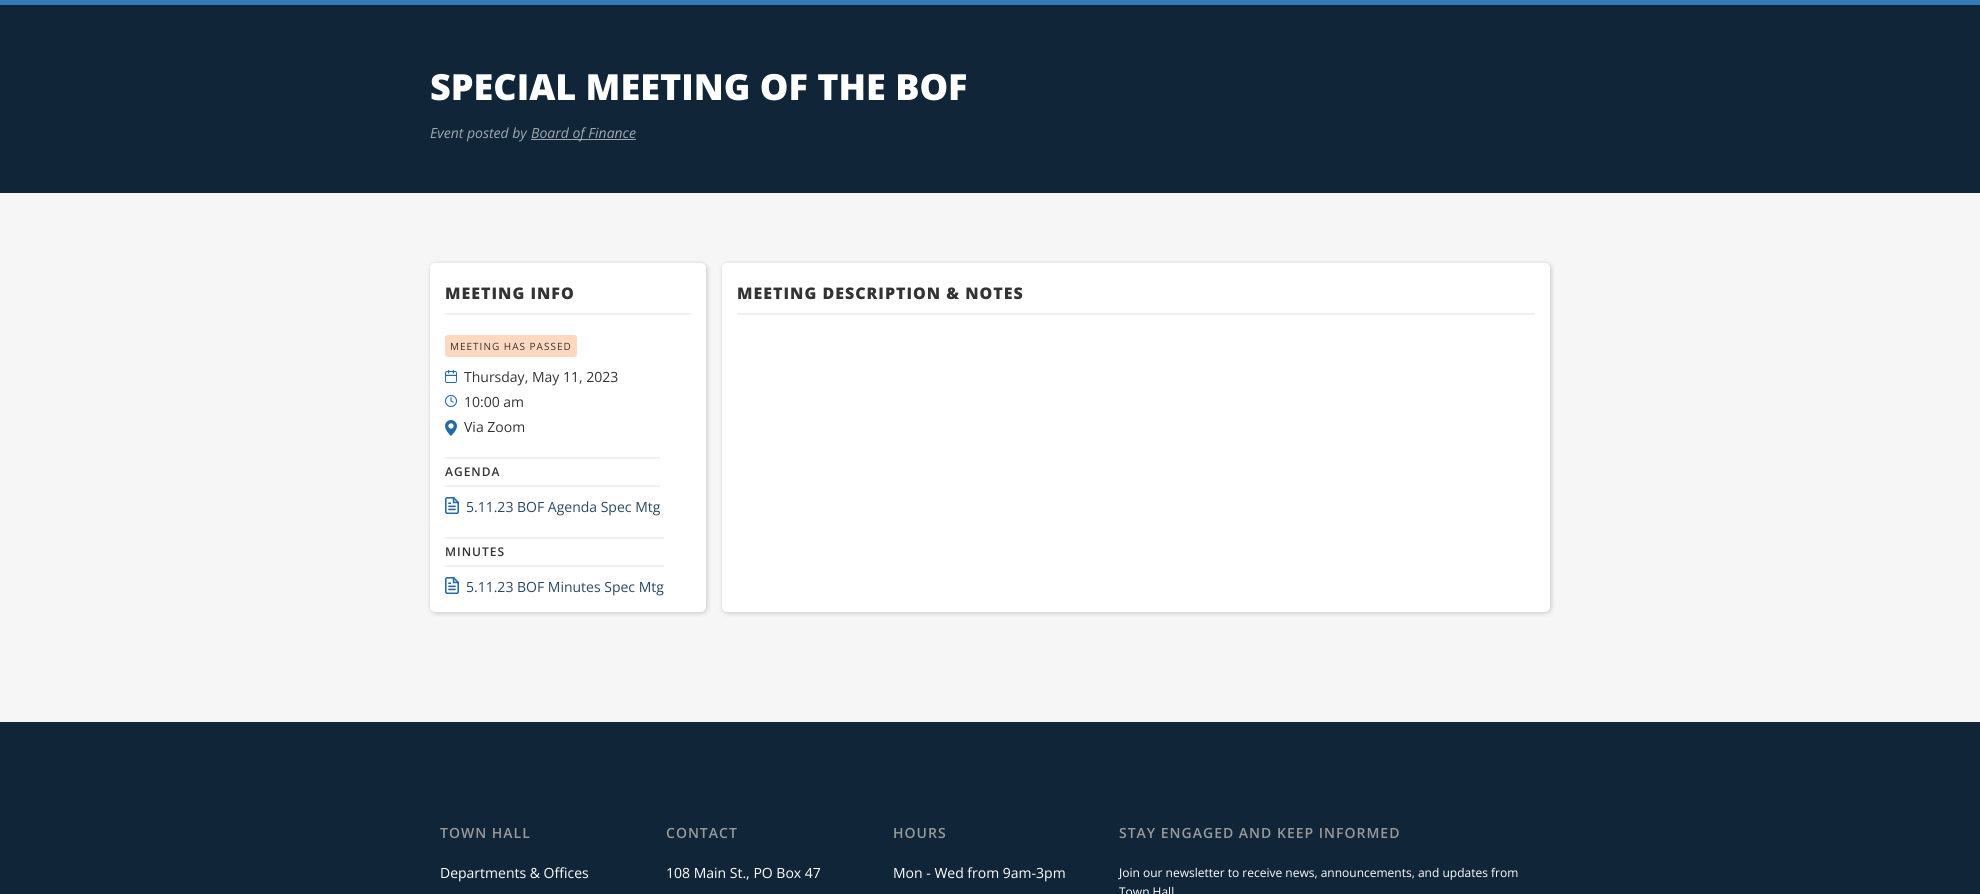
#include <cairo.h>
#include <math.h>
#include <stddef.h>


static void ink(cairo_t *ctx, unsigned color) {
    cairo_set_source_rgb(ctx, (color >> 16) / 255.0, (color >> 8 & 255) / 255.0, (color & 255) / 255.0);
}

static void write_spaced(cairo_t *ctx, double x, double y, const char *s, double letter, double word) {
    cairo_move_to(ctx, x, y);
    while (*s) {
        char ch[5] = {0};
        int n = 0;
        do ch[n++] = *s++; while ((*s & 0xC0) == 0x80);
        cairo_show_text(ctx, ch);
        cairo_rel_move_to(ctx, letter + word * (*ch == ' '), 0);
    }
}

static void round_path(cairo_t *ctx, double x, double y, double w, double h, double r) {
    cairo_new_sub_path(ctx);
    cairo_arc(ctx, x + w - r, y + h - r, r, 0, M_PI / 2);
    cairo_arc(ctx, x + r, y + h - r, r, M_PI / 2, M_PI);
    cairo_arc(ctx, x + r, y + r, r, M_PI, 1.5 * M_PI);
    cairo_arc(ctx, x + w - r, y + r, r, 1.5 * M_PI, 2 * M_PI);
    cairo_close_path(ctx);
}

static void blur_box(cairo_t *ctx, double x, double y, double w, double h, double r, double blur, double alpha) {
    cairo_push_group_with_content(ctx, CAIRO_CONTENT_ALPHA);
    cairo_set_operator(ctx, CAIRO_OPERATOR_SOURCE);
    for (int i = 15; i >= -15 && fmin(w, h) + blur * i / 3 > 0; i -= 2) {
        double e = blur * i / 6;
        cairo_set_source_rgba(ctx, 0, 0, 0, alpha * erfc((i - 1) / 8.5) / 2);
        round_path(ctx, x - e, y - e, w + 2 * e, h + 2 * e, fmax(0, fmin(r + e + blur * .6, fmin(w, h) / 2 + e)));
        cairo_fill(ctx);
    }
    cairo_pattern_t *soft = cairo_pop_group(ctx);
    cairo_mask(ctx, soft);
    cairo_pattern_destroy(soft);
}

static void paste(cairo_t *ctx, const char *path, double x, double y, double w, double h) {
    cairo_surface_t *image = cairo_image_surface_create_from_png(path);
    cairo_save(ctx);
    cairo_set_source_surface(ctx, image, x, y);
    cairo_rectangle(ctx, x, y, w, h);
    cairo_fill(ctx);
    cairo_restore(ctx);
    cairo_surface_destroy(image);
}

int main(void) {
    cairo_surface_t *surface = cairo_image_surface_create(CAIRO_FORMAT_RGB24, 1980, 894);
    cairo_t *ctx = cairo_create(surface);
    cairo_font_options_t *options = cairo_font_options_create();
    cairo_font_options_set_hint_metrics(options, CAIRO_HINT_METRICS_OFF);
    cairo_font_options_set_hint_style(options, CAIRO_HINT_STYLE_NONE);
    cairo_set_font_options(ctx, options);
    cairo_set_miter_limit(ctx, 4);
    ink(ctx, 0xF6F6F6);
    cairo_paint(ctx);
    ink(ctx, 0x327BB7);
    cairo_rectangle(ctx, 0, 0, 1980, 5);
    cairo_fill(ctx);
    ink(ctx, 0x102638);
    cairo_rectangle(ctx, 0, 5, 1980, 188);
    cairo_fill(ctx);
    cairo_select_font_face(ctx, "Open Sans ExtraBold", CAIRO_FONT_SLANT_NORMAL, CAIRO_FONT_WEIGHT_NORMAL);
    cairo_set_font_size(ctx, 36);
    ink(ctx, 0xFFFFFF);
    cairo_move_to(ctx, 430, 100);
    cairo_show_text(ctx, "SPECIAL MEETING OF THE BOF");
    cairo_select_font_face(ctx, "Open Sans", CAIRO_FONT_SLANT_ITALIC, CAIRO_FONT_WEIGHT_NORMAL);
    cairo_set_font_size(ctx, 14);
    ink(ctx, 0x9FA8AF);
    cairo_move_to(ctx, 430, 138);
    cairo_show_text(ctx, "Event posted by");
    cairo_rectangle(ctx, 531, 139, 105, 1);
    cairo_fill(ctx);
    cairo_move_to(ctx, 531, 138);
    cairo_show_text(ctx, "Board of Finance");
    ink(ctx, 0x000000);
    blur_box(ctx, 431, 264, 276, 349, 5, 2.5, 0.2);
    ink(ctx, 0xFFFFFF);
    round_path(ctx, 430, 263, 276, 349, 5);
    cairo_fill(ctx);
    ink(ctx, 0xF1F1F1);
    cairo_rectangle(ctx, 445, 313, 246, 2);
    cairo_fill(ctx);
    cairo_select_font_face(ctx, "Open Sans ExtraBold", CAIRO_FONT_SLANT_NORMAL, CAIRO_FONT_WEIGHT_NORMAL);
    cairo_set_font_size(ctx, 16);
    ink(ctx, 0x333333);
    write_spaced(ctx, 445, 299, "MEETING INFO", 1, 0);
    ink(ctx, 0xFFD9BF);
    round_path(ctx, 445, 335, 132, 22, 3);
    cairo_fill(ctx);
    cairo_select_font_face(ctx, "Open Sans", CAIRO_FONT_SLANT_NORMAL, CAIRO_FONT_WEIGHT_NORMAL);
    cairo_set_font_size(ctx, 10);
    ink(ctx, 0x333333);
    write_spaced(ctx, 450, 350, "MEETING HAS PASSED", 1, 0);
    paste(ctx, "media/1.png", 445, 370, 12, 13);
    cairo_set_font_size(ctx, 14);
    cairo_move_to(ctx, 464, 382);
    cairo_show_text(ctx, "Thursday, May 11, 2023");
    paste(ctx, "media/2.png", 445, 395, 12, 12);
    cairo_move_to(ctx, 464, 407);
    cairo_show_text(ctx, "10:00 am");
    paste(ctx, "media/3.png", 445, 420, 12, 16);
    cairo_move_to(ctx, 464, 432);
    cairo_show_text(ctx, "Via Zoom");
    ink(ctx, 0xF1F1F1);
    cairo_rectangle(ctx, 445, 457, 215, 2);
    cairo_fill(ctx);
    cairo_rectangle(ctx, 445, 485, 215, 2);
    cairo_fill(ctx);
    cairo_select_font_face(ctx, "Open Sans SemiBold", CAIRO_FONT_SLANT_NORMAL, CAIRO_FONT_WEIGHT_NORMAL);
    cairo_set_font_size(ctx, 12);
    ink(ctx, 0x333333);
    write_spaced(ctx, 445, 476, "AGENDA", 1, 0);
    paste(ctx, "media/4.png", 445, 497, 14, 17);
    cairo_select_font_face(ctx, "Open Sans", CAIRO_FONT_SLANT_NORMAL, CAIRO_FONT_WEIGHT_NORMAL);
    cairo_set_font_size(ctx, 14);
    ink(ctx, 0x294861);
    cairo_move_to(ctx, 466, 512);
    cairo_show_text(ctx, "5.11.23 BOF Agenda Spec Mtg");
    ink(ctx, 0xF1F1F1);
    cairo_rectangle(ctx, 445, 537, 219, 2);
    cairo_fill(ctx);
    cairo_rectangle(ctx, 445, 565, 219, 2);
    cairo_fill(ctx);
    cairo_select_font_face(ctx, "Open Sans SemiBold", CAIRO_FONT_SLANT_NORMAL, CAIRO_FONT_WEIGHT_NORMAL);
    cairo_set_font_size(ctx, 12);
    ink(ctx, 0x333333);
    write_spaced(ctx, 445, 556, "MINUTES", 1, 0);
    paste(ctx, "media/4.png", 445, 577, 14, 17);
    cairo_select_font_face(ctx, "Open Sans", CAIRO_FONT_SLANT_NORMAL, CAIRO_FONT_WEIGHT_NORMAL);
    cairo_set_font_size(ctx, 14);
    ink(ctx, 0x294861);
    cairo_move_to(ctx, 466, 592);
    cairo_show_text(ctx, "5.11.23 BOF Minutes Spec Mtg");
    ink(ctx, 0x000000);
    blur_box(ctx, 723, 264, 828, 349, 5, 2.5, 0.2);
    ink(ctx, 0xFFFFFF);
    round_path(ctx, 722, 263, 828, 349, 5);
    cairo_fill(ctx);
    ink(ctx, 0xF1F1F1);
    cairo_rectangle(ctx, 737, 313, 798, 2);
    cairo_fill(ctx);
    cairo_select_font_face(ctx, "Open Sans ExtraBold", CAIRO_FONT_SLANT_NORMAL, CAIRO_FONT_WEIGHT_NORMAL);
    cairo_set_font_size(ctx, 16);
    ink(ctx, 0x333333);
    write_spaced(ctx, 737, 299, "MEETING DESCRIPTION & NOTES", 1, 0);
    ink(ctx, 0x102638);
    cairo_rectangle(ctx, 0, 722, 1980, 172);
    cairo_fill(ctx);
    cairo_select_font_face(ctx, "Open Sans SemiBold", CAIRO_FONT_SLANT_NORMAL, CAIRO_FONT_WEIGHT_NORMAL);
    cairo_set_font_size(ctx, 14);
    ink(ctx, 0x999999);
    write_spaced(ctx, 440, 838, "TOWN HALL", 1, 0);
    cairo_select_font_face(ctx, "Open Sans", CAIRO_FONT_SLANT_NORMAL, CAIRO_FONT_WEIGHT_NORMAL);
    ink(ctx, 0xFFFFFF);
    cairo_move_to(ctx, 440, 878);
    cairo_show_text(ctx, "Departments & Offices");
    cairo_select_font_face(ctx, "Open Sans SemiBold", CAIRO_FONT_SLANT_NORMAL, CAIRO_FONT_WEIGHT_NORMAL);
    ink(ctx, 0x999999);
    write_spaced(ctx, 666, 838, "CONTACT", 1, 0);
    cairo_select_font_face(ctx, "Open Sans", CAIRO_FONT_SLANT_NORMAL, CAIRO_FONT_WEIGHT_NORMAL);
    ink(ctx, 0xFFFFFF);
    cairo_move_to(ctx, 666, 878);
    cairo_show_text(ctx, "108 Main St., PO Box 47");
    cairo_select_font_face(ctx, "Open Sans SemiBold", CAIRO_FONT_SLANT_NORMAL, CAIRO_FONT_WEIGHT_NORMAL);
    ink(ctx, 0x999999);
    write_spaced(ctx, 893, 838, "HOURS", 1, 0);
    cairo_select_font_face(ctx, "Open Sans", CAIRO_FONT_SLANT_NORMAL, CAIRO_FONT_WEIGHT_NORMAL);
    ink(ctx, 0xFFFFFF);
    cairo_move_to(ctx, 893, 878);
    cairo_show_text(ctx, "Mon - Wed from 9am-3pm");
    cairo_select_font_face(ctx, "Open Sans SemiBold", CAIRO_FONT_SLANT_NORMAL, CAIRO_FONT_WEIGHT_NORMAL);
    ink(ctx, 0x999999);
    write_spaced(ctx, 1119, 838, "STAY ENGAGED AND KEEP INFORMED", 1, 0);
    cairo_select_font_face(ctx, "Open Sans", CAIRO_FONT_SLANT_NORMAL, CAIRO_FONT_WEIGHT_NORMAL);
    cairo_set_font_size(ctx, 12);
    ink(ctx, 0xFFFFFF);
    cairo_move_to(ctx, 1119, 877);
    cairo_show_text(ctx, "Join our newsletter to receive news, announcements, and updates from");
    cairo_move_to(ctx, 1119, 896);
    cairo_show_text(ctx, "Town Hall");
    cairo_surface_write_to_png(surface, "image.png");
    cairo_font_options_destroy(options);
    cairo_destroy(ctx);
    cairo_surface_destroy(surface);
    return 0;
}
